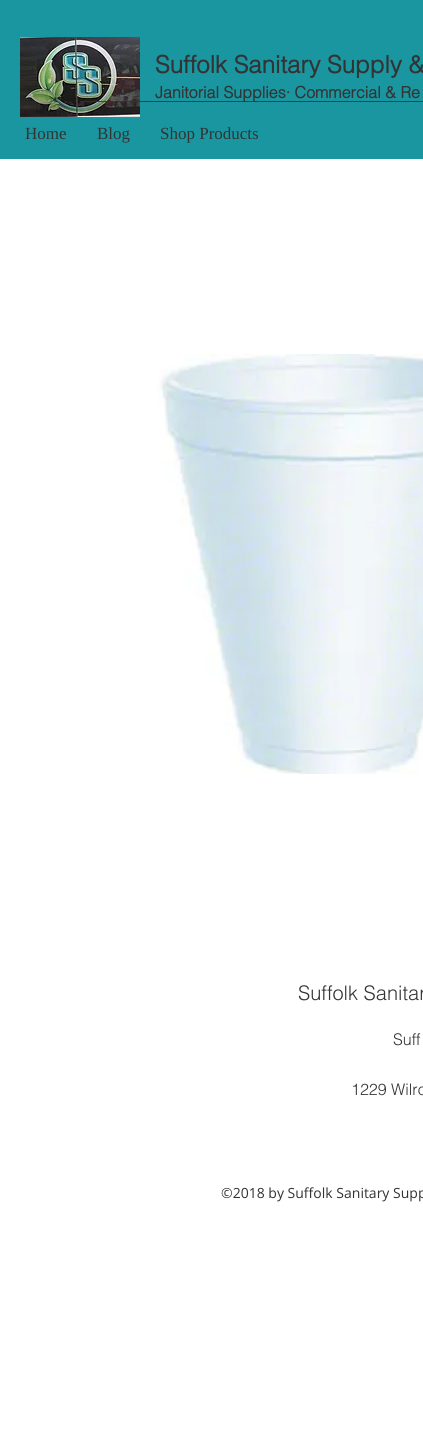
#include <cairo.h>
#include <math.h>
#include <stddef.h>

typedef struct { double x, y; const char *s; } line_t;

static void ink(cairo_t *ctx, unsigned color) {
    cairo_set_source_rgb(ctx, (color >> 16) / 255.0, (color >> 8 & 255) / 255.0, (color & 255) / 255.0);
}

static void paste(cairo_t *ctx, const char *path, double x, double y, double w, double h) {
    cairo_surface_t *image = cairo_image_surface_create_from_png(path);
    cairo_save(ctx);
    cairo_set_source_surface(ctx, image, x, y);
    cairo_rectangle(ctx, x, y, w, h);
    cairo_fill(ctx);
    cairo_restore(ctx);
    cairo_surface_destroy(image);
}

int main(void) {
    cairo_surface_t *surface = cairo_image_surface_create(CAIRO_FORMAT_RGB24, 423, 1445);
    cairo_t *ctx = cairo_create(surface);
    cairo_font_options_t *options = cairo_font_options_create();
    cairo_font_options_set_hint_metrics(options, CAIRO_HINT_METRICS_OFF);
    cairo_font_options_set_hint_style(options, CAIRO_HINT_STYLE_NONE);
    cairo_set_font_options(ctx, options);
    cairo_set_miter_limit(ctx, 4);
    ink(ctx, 0xFFFFFF);
    cairo_paint(ctx);
    ink(ctx, 0x1996A0);
    cairo_rectangle(ctx, 0, 0, 423, 159);
    cairo_fill(ctx);
    paste(ctx, "media/1.png", 20, 37, 120, 80);
    cairo_select_font_face(ctx, "helvetica", CAIRO_FONT_SLANT_NORMAL, CAIRO_FONT_WEIGHT_BOLD);
    cairo_set_font_size(ctx, 24);
    ink(ctx, 0x333333);
    cairo_move_to(ctx, 155, 73);
    cairo_show_text(ctx, "Suffolk Sanitary Supply &");
    cairo_set_font_size(ctx, 16);
    cairo_move_to(ctx, 155, 98);
    cairo_show_text(ctx, "Janitorial Supplies· Commercial & Re");
    cairo_set_source_rgba(ctx, 0.2, 0.2, 0.2, 0.85);
    cairo_rectangle(ctx, 80, 101, 343, 1);
    cairo_fill(ctx);
    cairo_select_font_face(ctx, "Liberation Serif", CAIRO_FONT_SLANT_NORMAL, CAIRO_FONT_WEIGHT_NORMAL);
    cairo_set_font_size(ctx, 17);
    ink(ctx, 0x333333);
    {
        static const line_t items[] = {
            {25, 139, "Home"},
            {97, 139, "Blog"},
            {160, 139, "Shop Products"},
        };
        for (size_t i = 0; i < sizeof items / sizeof *items; i++) {
            cairo_move_to(ctx, items[i].x, items[i].y);
            cairo_show_text(ctx, items[i].s);
        }
    }
    paste(ctx, "media/2.png", 157, 354, 266, 420);
    cairo_select_font_face(ctx, "helvetica Light", CAIRO_FONT_SLANT_NORMAL, CAIRO_FONT_WEIGHT_NORMAL);
    cairo_set_font_size(ctx, 20);
    cairo_move_to(ctx, 298, 1000);
    cairo_show_text(ctx, "Suffolk Sanitar");
    cairo_set_font_size(ctx, 16);
    cairo_move_to(ctx, 393, 1045);
    cairo_show_text(ctx, "Suff");
    cairo_move_to(ctx, 351, 1095);
    cairo_show_text(ctx, "1229 Wilro");
    cairo_select_font_face(ctx, "Open Sans", CAIRO_FONT_SLANT_NORMAL, CAIRO_FONT_WEIGHT_NORMAL);
    cairo_set_font_size(ctx, 14);
    cairo_move_to(ctx, 221, 1198);
    cairo_show_text(ctx, "©2018 by Suffolk Sanitary Supp");
    cairo_surface_write_to_png(surface, "image.png");
    cairo_font_options_destroy(options);
    cairo_destroy(ctx);
    cairo_surface_destroy(surface);
    return 0;
}
